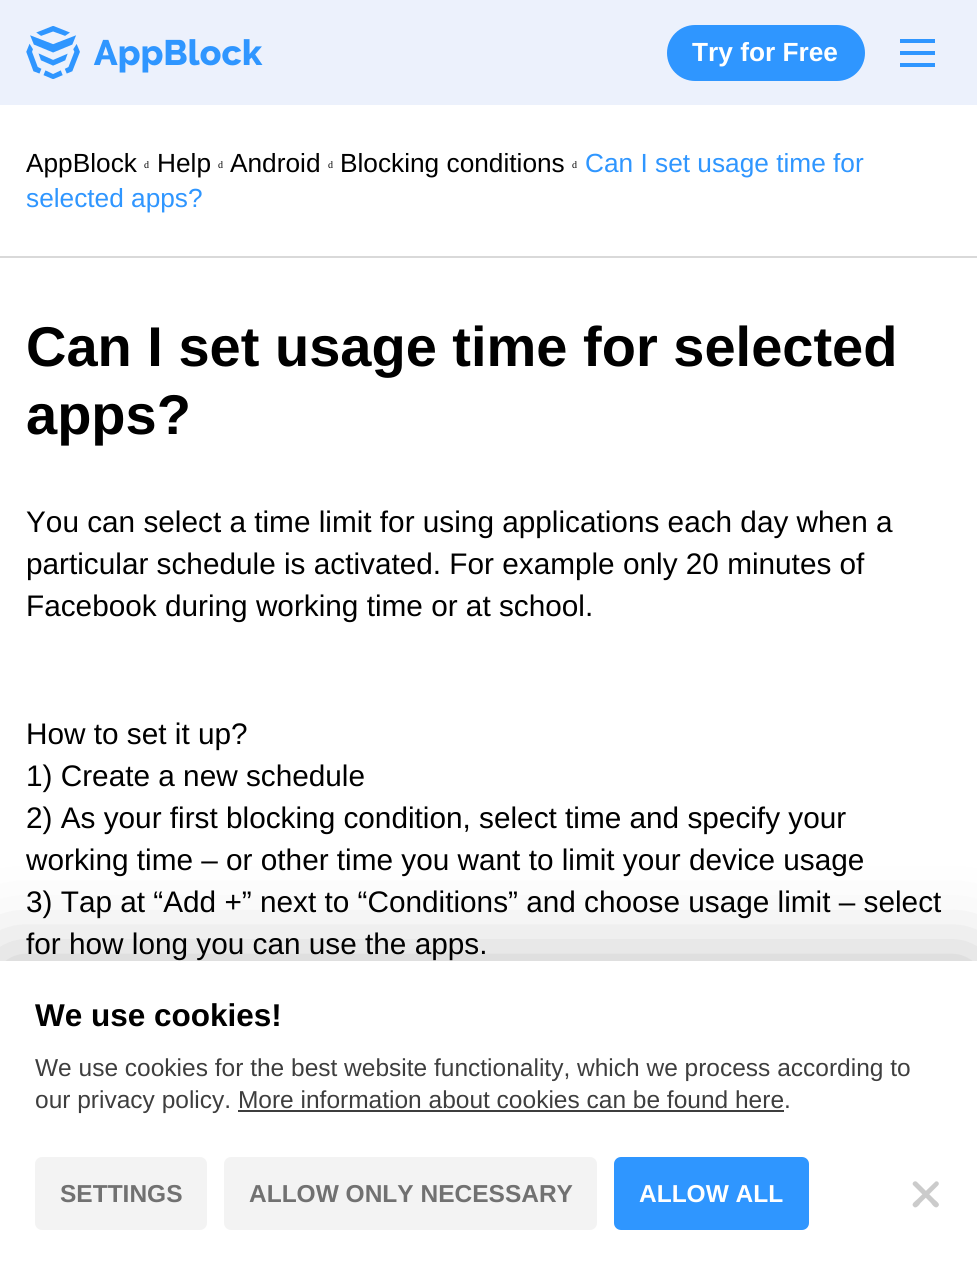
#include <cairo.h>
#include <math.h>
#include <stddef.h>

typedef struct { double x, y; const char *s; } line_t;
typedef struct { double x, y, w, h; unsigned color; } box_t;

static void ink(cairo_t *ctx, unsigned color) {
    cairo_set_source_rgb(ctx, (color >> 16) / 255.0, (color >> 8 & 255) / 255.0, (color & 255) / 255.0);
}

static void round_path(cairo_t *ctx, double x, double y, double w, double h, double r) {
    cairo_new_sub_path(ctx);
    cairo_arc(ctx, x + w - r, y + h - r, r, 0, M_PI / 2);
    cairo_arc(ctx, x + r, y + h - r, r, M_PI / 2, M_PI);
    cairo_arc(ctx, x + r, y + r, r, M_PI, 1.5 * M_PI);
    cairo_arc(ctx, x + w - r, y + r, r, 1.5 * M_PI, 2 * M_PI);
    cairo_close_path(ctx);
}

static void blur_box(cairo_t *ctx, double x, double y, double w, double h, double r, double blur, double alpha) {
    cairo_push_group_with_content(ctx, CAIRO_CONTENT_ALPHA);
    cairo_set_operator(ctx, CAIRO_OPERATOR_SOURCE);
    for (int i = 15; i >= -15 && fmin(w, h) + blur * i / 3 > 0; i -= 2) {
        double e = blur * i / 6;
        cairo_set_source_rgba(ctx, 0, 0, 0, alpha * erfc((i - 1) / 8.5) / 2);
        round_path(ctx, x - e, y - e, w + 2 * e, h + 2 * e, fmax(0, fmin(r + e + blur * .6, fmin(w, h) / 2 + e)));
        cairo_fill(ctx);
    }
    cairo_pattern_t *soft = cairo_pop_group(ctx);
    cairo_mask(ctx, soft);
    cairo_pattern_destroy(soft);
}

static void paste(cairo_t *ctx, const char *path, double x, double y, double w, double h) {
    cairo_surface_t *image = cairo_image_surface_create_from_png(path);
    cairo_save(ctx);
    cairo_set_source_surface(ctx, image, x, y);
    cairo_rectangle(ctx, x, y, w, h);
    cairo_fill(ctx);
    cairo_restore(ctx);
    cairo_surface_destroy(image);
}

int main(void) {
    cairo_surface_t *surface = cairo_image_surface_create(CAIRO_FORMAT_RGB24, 977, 1271);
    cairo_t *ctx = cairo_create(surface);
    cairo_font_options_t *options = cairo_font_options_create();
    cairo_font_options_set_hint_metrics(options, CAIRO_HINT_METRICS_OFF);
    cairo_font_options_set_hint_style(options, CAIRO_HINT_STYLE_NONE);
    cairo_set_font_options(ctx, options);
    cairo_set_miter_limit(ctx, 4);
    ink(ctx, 0xFFFFFF);
    cairo_paint(ctx);
    ink(ctx, 0xECF1FC);
    cairo_rectangle(ctx, 0, 0, 977, 105);
    cairo_fill(ctx);
    paste(ctx, "media/1.png", 26, 26, 237, 53);
    ink(ctx, 0x2F96FF);
    round_path(ctx, 667, 25, 198, 56, 28);
    cairo_fill(ctx);
    cairo_select_font_face(ctx, "Liberation Sans", CAIRO_FONT_SLANT_NORMAL, CAIRO_FONT_WEIGHT_BOLD);
    cairo_set_font_size(ctx, 26.25);
    ink(ctx, 0xFFFFFF);
    cairo_move_to(ctx, 692, 61);
    cairo_show_text(ctx, "Try for Free");
    {
        static const box_t items[] = {
            {900, 51, 35, 4, 0x2F96FF},
            {900, 39, 35, 4, 0x2F96FF},
            {900, 63, 35, 4, 0x2F96FF},
            {0, 256, 977, 2, 0xD9D9D9},
        };
        for (size_t i = 0; i < sizeof items / sizeof *items; i++) {
            ink(ctx, items[i].color);
            cairo_rectangle(ctx, items[i].x, items[i].y, items[i].w, items[i].h);
            cairo_fill(ctx);
        }
    }
    cairo_select_font_face(ctx, "Liberation Sans", CAIRO_FONT_SLANT_NORMAL, CAIRO_FONT_WEIGHT_NORMAL);
    ink(ctx, 0x000000);
    cairo_move_to(ctx, 26, 172);
    cairo_show_text(ctx, "AppBlock");
    cairo_select_font_face(ctx, "Liberation Serif", CAIRO_FONT_SLANT_NORMAL, CAIRO_FONT_WEIGHT_NORMAL);
    cairo_set_font_size(ctx, 10);
    cairo_move_to(ctx, 144, 168);
    cairo_show_text(ctx, "d");
    cairo_select_font_face(ctx, "Liberation Sans", CAIRO_FONT_SLANT_NORMAL, CAIRO_FONT_WEIGHT_NORMAL);
    cairo_set_font_size(ctx, 26.25);
    cairo_move_to(ctx, 157, 172);
    cairo_show_text(ctx, "Help");
    cairo_select_font_face(ctx, "Liberation Serif", CAIRO_FONT_SLANT_NORMAL, CAIRO_FONT_WEIGHT_NORMAL);
    cairo_set_font_size(ctx, 10);
    cairo_move_to(ctx, 218, 168);
    cairo_show_text(ctx, "d");
    cairo_select_font_face(ctx, "Liberation Sans", CAIRO_FONT_SLANT_NORMAL, CAIRO_FONT_WEIGHT_NORMAL);
    cairo_set_font_size(ctx, 26.25);
    cairo_move_to(ctx, 230, 172);
    cairo_show_text(ctx, "Android");
    cairo_select_font_face(ctx, "Liberation Serif", CAIRO_FONT_SLANT_NORMAL, CAIRO_FONT_WEIGHT_NORMAL);
    cairo_set_font_size(ctx, 10);
    cairo_move_to(ctx, 328, 168);
    cairo_show_text(ctx, "d");
    cairo_select_font_face(ctx, "Liberation Sans", CAIRO_FONT_SLANT_NORMAL, CAIRO_FONT_WEIGHT_NORMAL);
    cairo_set_font_size(ctx, 26.25);
    cairo_move_to(ctx, 340, 172);
    cairo_show_text(ctx, "Blocking conditions");
    cairo_select_font_face(ctx, "Liberation Serif", CAIRO_FONT_SLANT_NORMAL, CAIRO_FONT_WEIGHT_NORMAL);
    cairo_set_font_size(ctx, 10);
    cairo_move_to(ctx, 572, 168);
    cairo_show_text(ctx, "d");
    cairo_select_font_face(ctx, "Liberation Sans", CAIRO_FONT_SLANT_NORMAL, CAIRO_FONT_WEIGHT_NORMAL);
    cairo_set_font_size(ctx, 26.25);
    ink(ctx, 0x2F96FF);
    cairo_move_to(ctx, 585, 172);
    cairo_show_text(ctx, "Can I set usage time for");
    cairo_move_to(ctx, 26, 207);
    cairo_show_text(ctx, "selected apps?");
    cairo_select_font_face(ctx, "Liberation Sans", CAIRO_FONT_SLANT_NORMAL, CAIRO_FONT_WEIGHT_BOLD);
    cairo_set_font_size(ctx, 56);
    ink(ctx, 0x000000);
    cairo_move_to(ctx, 26, 366);
    cairo_show_text(ctx, "Can I set usage time for selected");
    cairo_move_to(ctx, 26, 434);
    cairo_show_text(ctx, "apps?");
    cairo_select_font_face(ctx, "Liberation Sans", CAIRO_FONT_SLANT_NORMAL, CAIRO_FONT_WEIGHT_NORMAL);
    cairo_set_font_size(ctx, 29.75);
    {
        static const line_t items[] = {
            {26, 532, "You can select a time limit for using applications each day when a"},
            {26, 574, "particular schedule is activated. For example only 20 minutes of"},
            {26, 616, "Facebook during working time or at school."},
            {26, 744, "How to set it up?"},
            {26, 786, "1) Create a new schedule"},
            {26, 828, "2) As your first blocking condition, select time and specify your"},
            {26, 870, "working time – or other time you want to limit your device usage"},
            {26, 912, "3) Tap at “Add +” next to “Conditions” and choose usage limit – select"},
            {26, 954, "for how long you can use the apps."},
        };
        for (size_t i = 0; i < sizeof items / sizeof *items; i++) {
            cairo_move_to(ctx, items[i].x, items[i].y);
            cairo_show_text(ctx, items[i].s);
        }
    }
    ink(ctx, 0x000000);
    blur_box(ctx, 0, 961, 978, 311, 0, 44, 0.25);
    ink(ctx, 0xFFFFFF);
    cairo_rectangle(ctx, 0, 961, 977, 310);
    cairo_fill(ctx);
    cairo_select_font_face(ctx, "Liberation Sans", CAIRO_FONT_SLANT_NORMAL, CAIRO_FONT_WEIGHT_BOLD);
    cairo_set_font_size(ctx, 31.5);
    ink(ctx, 0x000000);
    cairo_move_to(ctx, 35, 1026);
    cairo_show_text(ctx, "We use cookies!");
    cairo_select_font_face(ctx, "Liberation Sans", CAIRO_FONT_SLANT_NORMAL, CAIRO_FONT_WEIGHT_NORMAL);
    cairo_set_font_size(ctx, 24.5);
    ink(ctx, 0x3E3E3E);
    cairo_move_to(ctx, 35, 1076);
    cairo_show_text(ctx, "We use cookies for the best website functionality, which we process according to");
    cairo_move_to(ctx, 35, 1108);
    cairo_show_text(ctx, "our privacy policy. More information about cookies can be found here.");
    cairo_rectangle(ctx, 238, 1110, 546, 2);
    cairo_fill(ctx);
    ink(ctx, 0xF3F3F3);
    round_path(ctx, 35, 1157, 172, 73, 7);
    cairo_fill(ctx);
    cairo_select_font_face(ctx, "Liberation Sans", CAIRO_FONT_SLANT_NORMAL, CAIRO_FONT_WEIGHT_BOLD);
    ink(ctx, 0x717171);
    cairo_move_to(ctx, 60, 1202);
    cairo_show_text(ctx, "SETTINGS");
    ink(ctx, 0xF3F3F3);
    round_path(ctx, 224, 1157, 373, 73, 7);
    cairo_fill(ctx);
    ink(ctx, 0x717171);
    cairo_move_to(ctx, 249, 1202);
    cairo_show_text(ctx, "ALLOW ONLY NECESSARY");
    ink(ctx, 0x2F96FF);
    round_path(ctx, 614, 1157, 195, 73, 7);
    cairo_fill(ctx);
    ink(ctx, 0xFFFFFF);
    cairo_move_to(ctx, 639, 1202);
    cairo_show_text(ctx, "ALLOW ALL");
    ink(ctx, 0xCBCBCB);
    cairo_new_path(ctx);
    cairo_move_to(ctx, 917, 1182);
    cairo_line_to(ctx, 934.5, 1199.5);
    cairo_curve_to(ctx, 936, 1201, 941, 1204, 938, 1206.5);
    cairo_curve_to(ctx, 935.5, 1209.5, 932, 1204.5, 931, 1203);
    cairo_line_to(ctx, 913, 1185);
    cairo_curve_to(ctx, 911.5, 1182.5, 915, 1180, 917, 1182);
    cairo_close_path(ctx);
    cairo_fill(ctx);
    cairo_new_path(ctx);
    cairo_move_to(ctx, 938, 1185.5);
    cairo_line_to(ctx, 920.5, 1203);
    cairo_curve_to(ctx, 919.5, 1204.5, 916, 1209.5, 913.5, 1206.5);
    cairo_curve_to(ctx, 910.5, 1204, 915.5, 1201, 917, 1199.5);
    cairo_line_to(ctx, 935.5, 1181.5);
    cairo_curve_to(ctx, 938, 1180.5, 940, 1183.5, 938, 1185.5);
    cairo_close_path(ctx);
    cairo_fill(ctx);
    cairo_surface_write_to_png(surface, "image.png");
    cairo_font_options_destroy(options);
    cairo_destroy(ctx);
    cairo_surface_destroy(surface);
    return 0;
}
